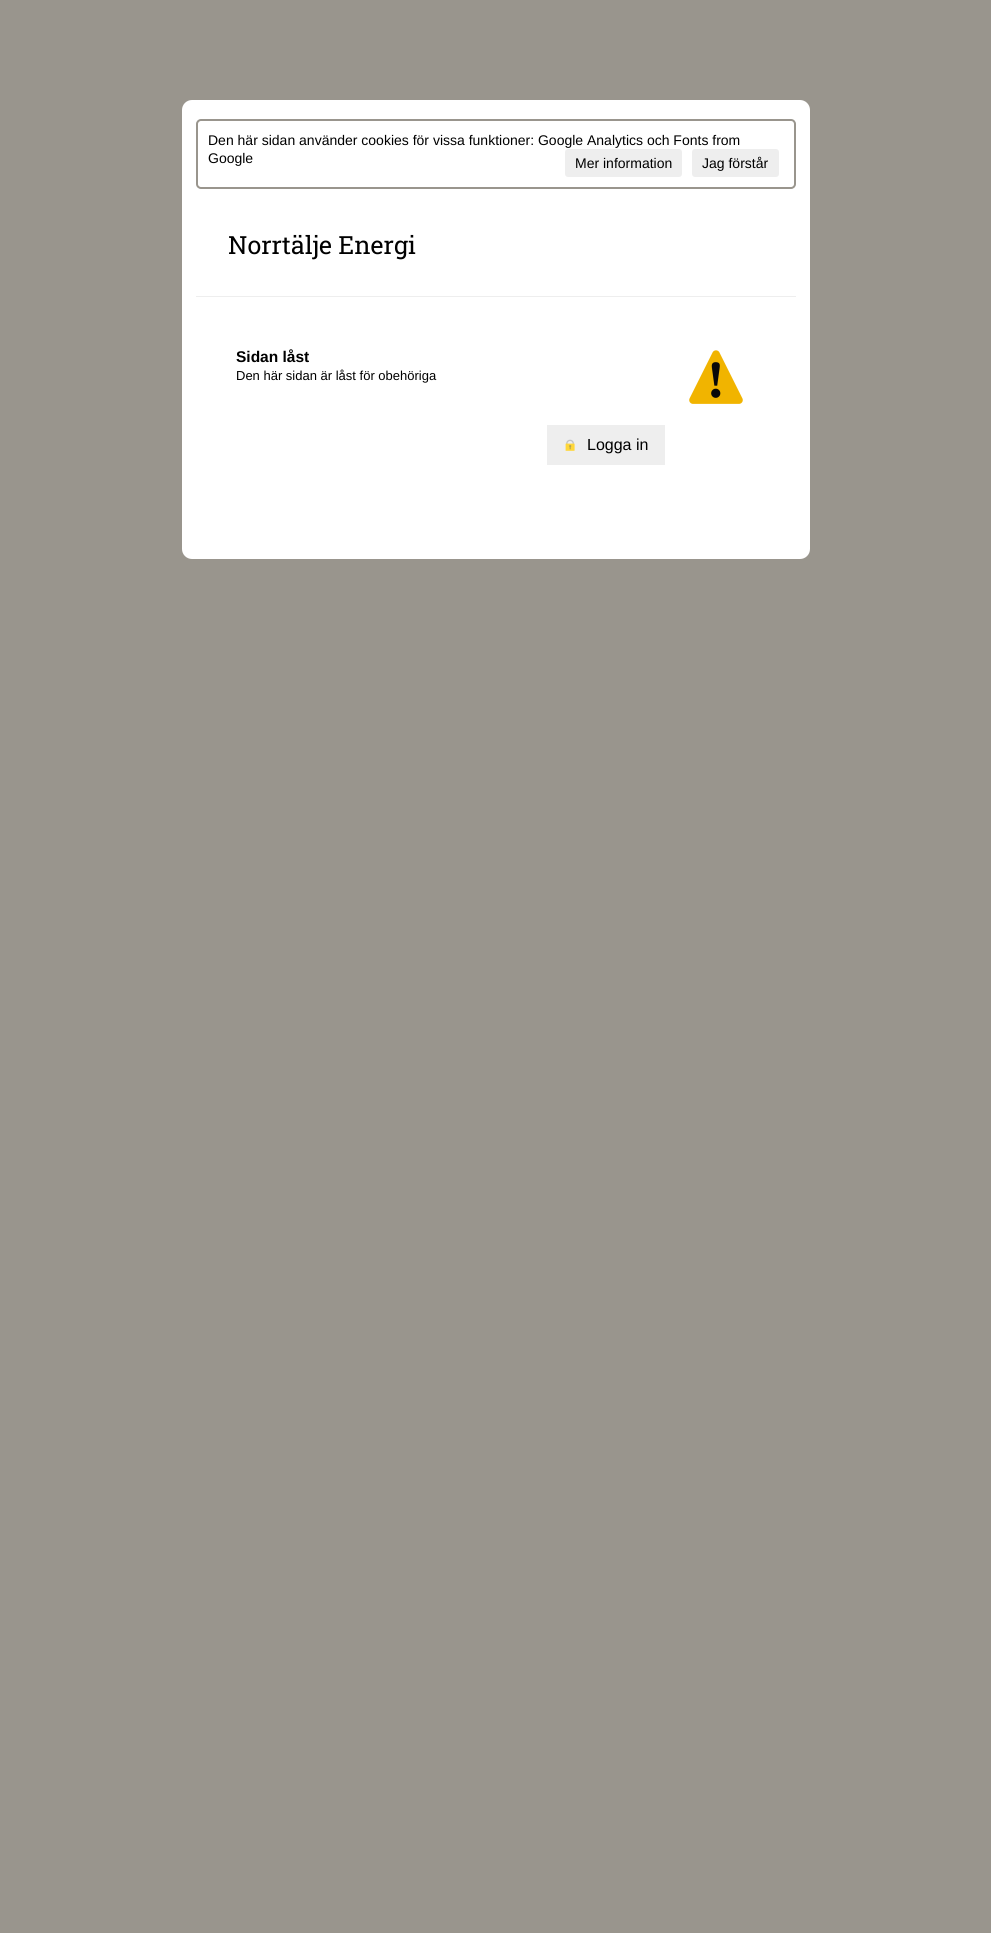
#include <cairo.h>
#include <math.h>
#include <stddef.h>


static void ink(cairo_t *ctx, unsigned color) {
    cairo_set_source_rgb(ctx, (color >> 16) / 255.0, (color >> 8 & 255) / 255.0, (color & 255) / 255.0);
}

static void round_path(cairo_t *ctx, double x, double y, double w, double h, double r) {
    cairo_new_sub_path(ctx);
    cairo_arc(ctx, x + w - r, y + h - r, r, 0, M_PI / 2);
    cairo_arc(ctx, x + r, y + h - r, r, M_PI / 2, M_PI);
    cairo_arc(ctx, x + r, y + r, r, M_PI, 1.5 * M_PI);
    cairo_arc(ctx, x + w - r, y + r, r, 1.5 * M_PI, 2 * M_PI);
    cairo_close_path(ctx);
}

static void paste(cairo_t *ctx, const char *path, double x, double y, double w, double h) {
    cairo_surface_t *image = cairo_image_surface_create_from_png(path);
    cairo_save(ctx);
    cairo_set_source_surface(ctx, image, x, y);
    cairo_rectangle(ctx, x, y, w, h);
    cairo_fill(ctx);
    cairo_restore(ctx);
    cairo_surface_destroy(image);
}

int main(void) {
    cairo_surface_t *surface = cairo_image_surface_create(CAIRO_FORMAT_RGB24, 991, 1933);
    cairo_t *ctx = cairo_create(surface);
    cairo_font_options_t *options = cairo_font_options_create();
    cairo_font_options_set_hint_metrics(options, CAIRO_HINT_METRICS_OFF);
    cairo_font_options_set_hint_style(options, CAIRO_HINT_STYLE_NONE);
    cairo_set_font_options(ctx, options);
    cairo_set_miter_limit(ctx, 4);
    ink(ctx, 0x99958D);
    cairo_paint(ctx);
    ink(ctx, 0xFFFFFF);
    round_path(ctx, 182, 100, 628, 459, 10);
    cairo_fill(ctx);
    round_path(ctx, 197, 120, 598, 68, 4);
    ink(ctx, 0x99958D);
    cairo_stroke(ctx);
    cairo_select_font_face(ctx, "Liberation Sans", CAIRO_FONT_SLANT_NORMAL, CAIRO_FONT_WEIGHT_NORMAL);
    cairo_set_font_size(ctx, 14);
    ink(ctx, 0x000000);
    cairo_move_to(ctx, 208, 145);
    cairo_show_text(ctx, "Den här sidan använder cookies för vissa funktioner: Google Analytics och Fonts from");
    cairo_move_to(ctx, 208, 163);
    cairo_show_text(ctx, "Google");
    ink(ctx, 0xEEEEEE);
    round_path(ctx, 565, 149, 117, 28, 3);
    cairo_fill(ctx);
    ink(ctx, 0x000000);
    cairo_move_to(ctx, 575, 168);
    cairo_show_text(ctx, "Mer information");
    ink(ctx, 0xEEEEEE);
    round_path(ctx, 692, 149, 87, 28, 3);
    cairo_fill(ctx);
    ink(ctx, 0x000000);
    cairo_move_to(ctx, 702, 168);
    cairo_show_text(ctx, "Jag förstår");
    ink(ctx, 0xEEEEEE);
    cairo_rectangle(ctx, 196, 296, 600, 1);
    cairo_fill(ctx);
    cairo_select_font_face(ctx, "Roboto Slab", CAIRO_FONT_SLANT_NORMAL, CAIRO_FONT_WEIGHT_NORMAL);
    cairo_set_font_size(ctx, 25);
    ink(ctx, 0x000000);
    cairo_move_to(ctx, 228, 254);
    cairo_show_text(ctx, "Norrtälje Energi");
    cairo_select_font_face(ctx, "Liberation Sans", CAIRO_FONT_SLANT_NORMAL, CAIRO_FONT_WEIGHT_BOLD);
    cairo_set_font_size(ctx, 15.5);
    cairo_move_to(ctx, 236, 362);
    cairo_show_text(ctx, "Sidan låst");
    cairo_select_font_face(ctx, "Liberation Sans", CAIRO_FONT_SLANT_NORMAL, CAIRO_FONT_WEIGHT_NORMAL);
    cairo_set_font_size(ctx, 13);
    cairo_move_to(ctx, 236, 380);
    cairo_show_text(ctx, "Den här sidan är låst för obehöriga");
    ink(ctx, 0xEEEEEE);
    cairo_rectangle(ctx, 547, 425, 118, 40);
    cairo_fill(ctx);
    paste(ctx, "media/1.png", 565, 439, 10, 12);
    cairo_set_font_size(ctx, 16);
    ink(ctx, 0x000000);
    cairo_move_to(ctx, 587, 450);
    cairo_show_text(ctx, "Logga in");
    paste(ctx, "media/2.png", 689, 350, 54, 54);
    cairo_surface_write_to_png(surface, "image.png");
    cairo_font_options_destroy(options);
    cairo_destroy(ctx);
    cairo_surface_destroy(surface);
    return 0;
}
